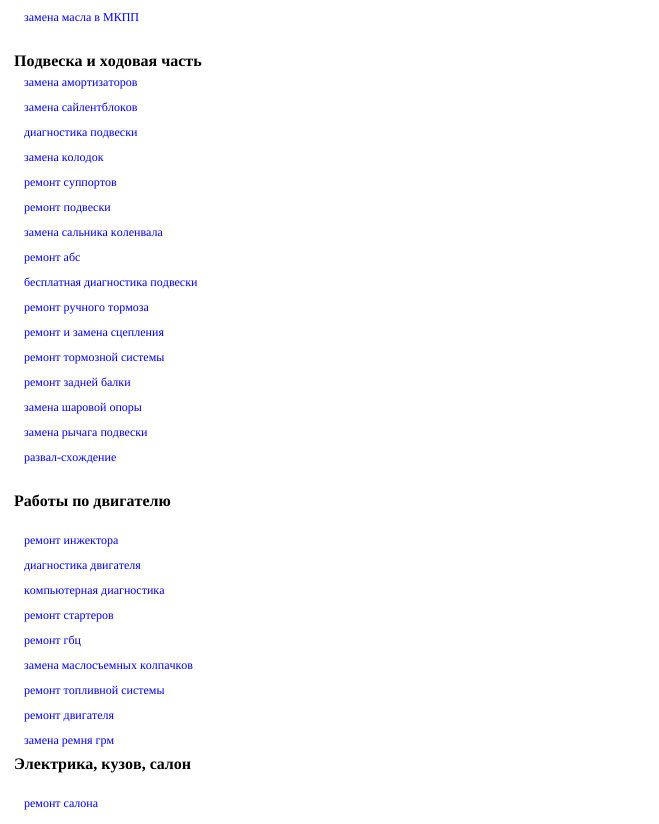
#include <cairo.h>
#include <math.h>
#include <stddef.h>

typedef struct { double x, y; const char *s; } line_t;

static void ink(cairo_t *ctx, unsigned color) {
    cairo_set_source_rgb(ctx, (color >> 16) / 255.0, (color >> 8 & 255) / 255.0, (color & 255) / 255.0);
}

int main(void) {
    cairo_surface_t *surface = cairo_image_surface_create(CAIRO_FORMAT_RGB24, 659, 824);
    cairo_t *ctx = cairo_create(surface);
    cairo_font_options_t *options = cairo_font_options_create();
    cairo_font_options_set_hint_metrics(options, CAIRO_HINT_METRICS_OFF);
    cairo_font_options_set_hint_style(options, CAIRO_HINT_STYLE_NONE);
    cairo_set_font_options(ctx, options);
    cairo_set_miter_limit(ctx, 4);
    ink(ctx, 0xFFFFFF);
    cairo_paint(ctx);
    cairo_select_font_face(ctx, "Liberation Serif", CAIRO_FONT_SLANT_NORMAL, CAIRO_FONT_WEIGHT_NORMAL);
    cairo_set_font_size(ctx, 12);
    ink(ctx, 0x0000EE);
    cairo_move_to(ctx, 24, 21);
    cairo_show_text(ctx, "замена масла в МКПП");
    cairo_select_font_face(ctx, "Liberation Serif", CAIRO_FONT_SLANT_NORMAL, CAIRO_FONT_WEIGHT_BOLD);
    cairo_set_font_size(ctx, 16);
    ink(ctx, 0x000000);
    cairo_move_to(ctx, 14, 66);
    cairo_show_text(ctx, "Подвеска и ходовая часть");
    cairo_select_font_face(ctx, "Liberation Serif", CAIRO_FONT_SLANT_NORMAL, CAIRO_FONT_WEIGHT_NORMAL);
    cairo_set_font_size(ctx, 12);
    ink(ctx, 0x0000EE);
    {
        static const line_t items[] = {
            {24, 86, "замена амортизаторов"},
            {24, 111, "замена сайлентблоков"},
            {24, 136, "диагностика подвески"},
            {24, 161, "замена колодок"},
            {24, 186, "ремонт суппортов"},
            {24, 211, "ремонт подвески"},
            {24, 236, "замена сальника коленвала"},
            {24, 261, "ремонт абс"},
            {24, 286, "бесплатная диагностика подвески"},
            {24, 311, "ремонт ручного тормоза"},
            {24, 336, "ремонт и замена сцепления"},
            {24, 361, "ремонт тормозной системы"},
            {24, 386, "ремонт задней балки"},
            {24, 411, "замена шаровой опоры"},
            {24, 436, "замена рычага подвески"},
            {24, 461, "развал-схождение"},
        };
        for (size_t i = 0; i < sizeof items / sizeof *items; i++) {
            cairo_move_to(ctx, items[i].x, items[i].y);
            cairo_show_text(ctx, items[i].s);
        }
    }
    cairo_select_font_face(ctx, "Liberation Serif", CAIRO_FONT_SLANT_NORMAL, CAIRO_FONT_WEIGHT_BOLD);
    cairo_set_font_size(ctx, 16);
    ink(ctx, 0x000000);
    cairo_move_to(ctx, 14, 506);
    cairo_show_text(ctx, "Работы по двигателю");
    cairo_select_font_face(ctx, "Liberation Serif", CAIRO_FONT_SLANT_NORMAL, CAIRO_FONT_WEIGHT_NORMAL);
    cairo_set_font_size(ctx, 12);
    ink(ctx, 0x0000EE);
    {
        static const line_t items[] = {
            {24, 544, "ремонт инжектора"},
            {24, 569, "диагностика двигателя"},
            {24, 594, "компьютерная диагностика"},
            {24, 619, "ремонт стартеров"},
            {24, 644, "ремонт гбц"},
            {24, 669, "замена маслосъемных колпачков"},
            {24, 694, "ремонт топливной системы"},
            {24, 719, "ремонт двигателя"},
            {24, 744, "замена ремня грм"},
        };
        for (size_t i = 0; i < sizeof items / sizeof *items; i++) {
            cairo_move_to(ctx, items[i].x, items[i].y);
            cairo_show_text(ctx, items[i].s);
        }
    }
    cairo_select_font_face(ctx, "Liberation Serif", CAIRO_FONT_SLANT_NORMAL, CAIRO_FONT_WEIGHT_BOLD);
    cairo_set_font_size(ctx, 16);
    ink(ctx, 0x000000);
    cairo_move_to(ctx, 14, 769);
    cairo_show_text(ctx, "Электрика, кузов, салон");
    cairo_select_font_face(ctx, "Liberation Serif", CAIRO_FONT_SLANT_NORMAL, CAIRO_FONT_WEIGHT_NORMAL);
    cairo_set_font_size(ctx, 12);
    ink(ctx, 0x0000EE);
    cairo_move_to(ctx, 24, 807);
    cairo_show_text(ctx, "ремонт салона");
    cairo_surface_write_to_png(surface, "image.png");
    cairo_font_options_destroy(options);
    cairo_destroy(ctx);
    cairo_surface_destroy(surface);
    return 0;
}
